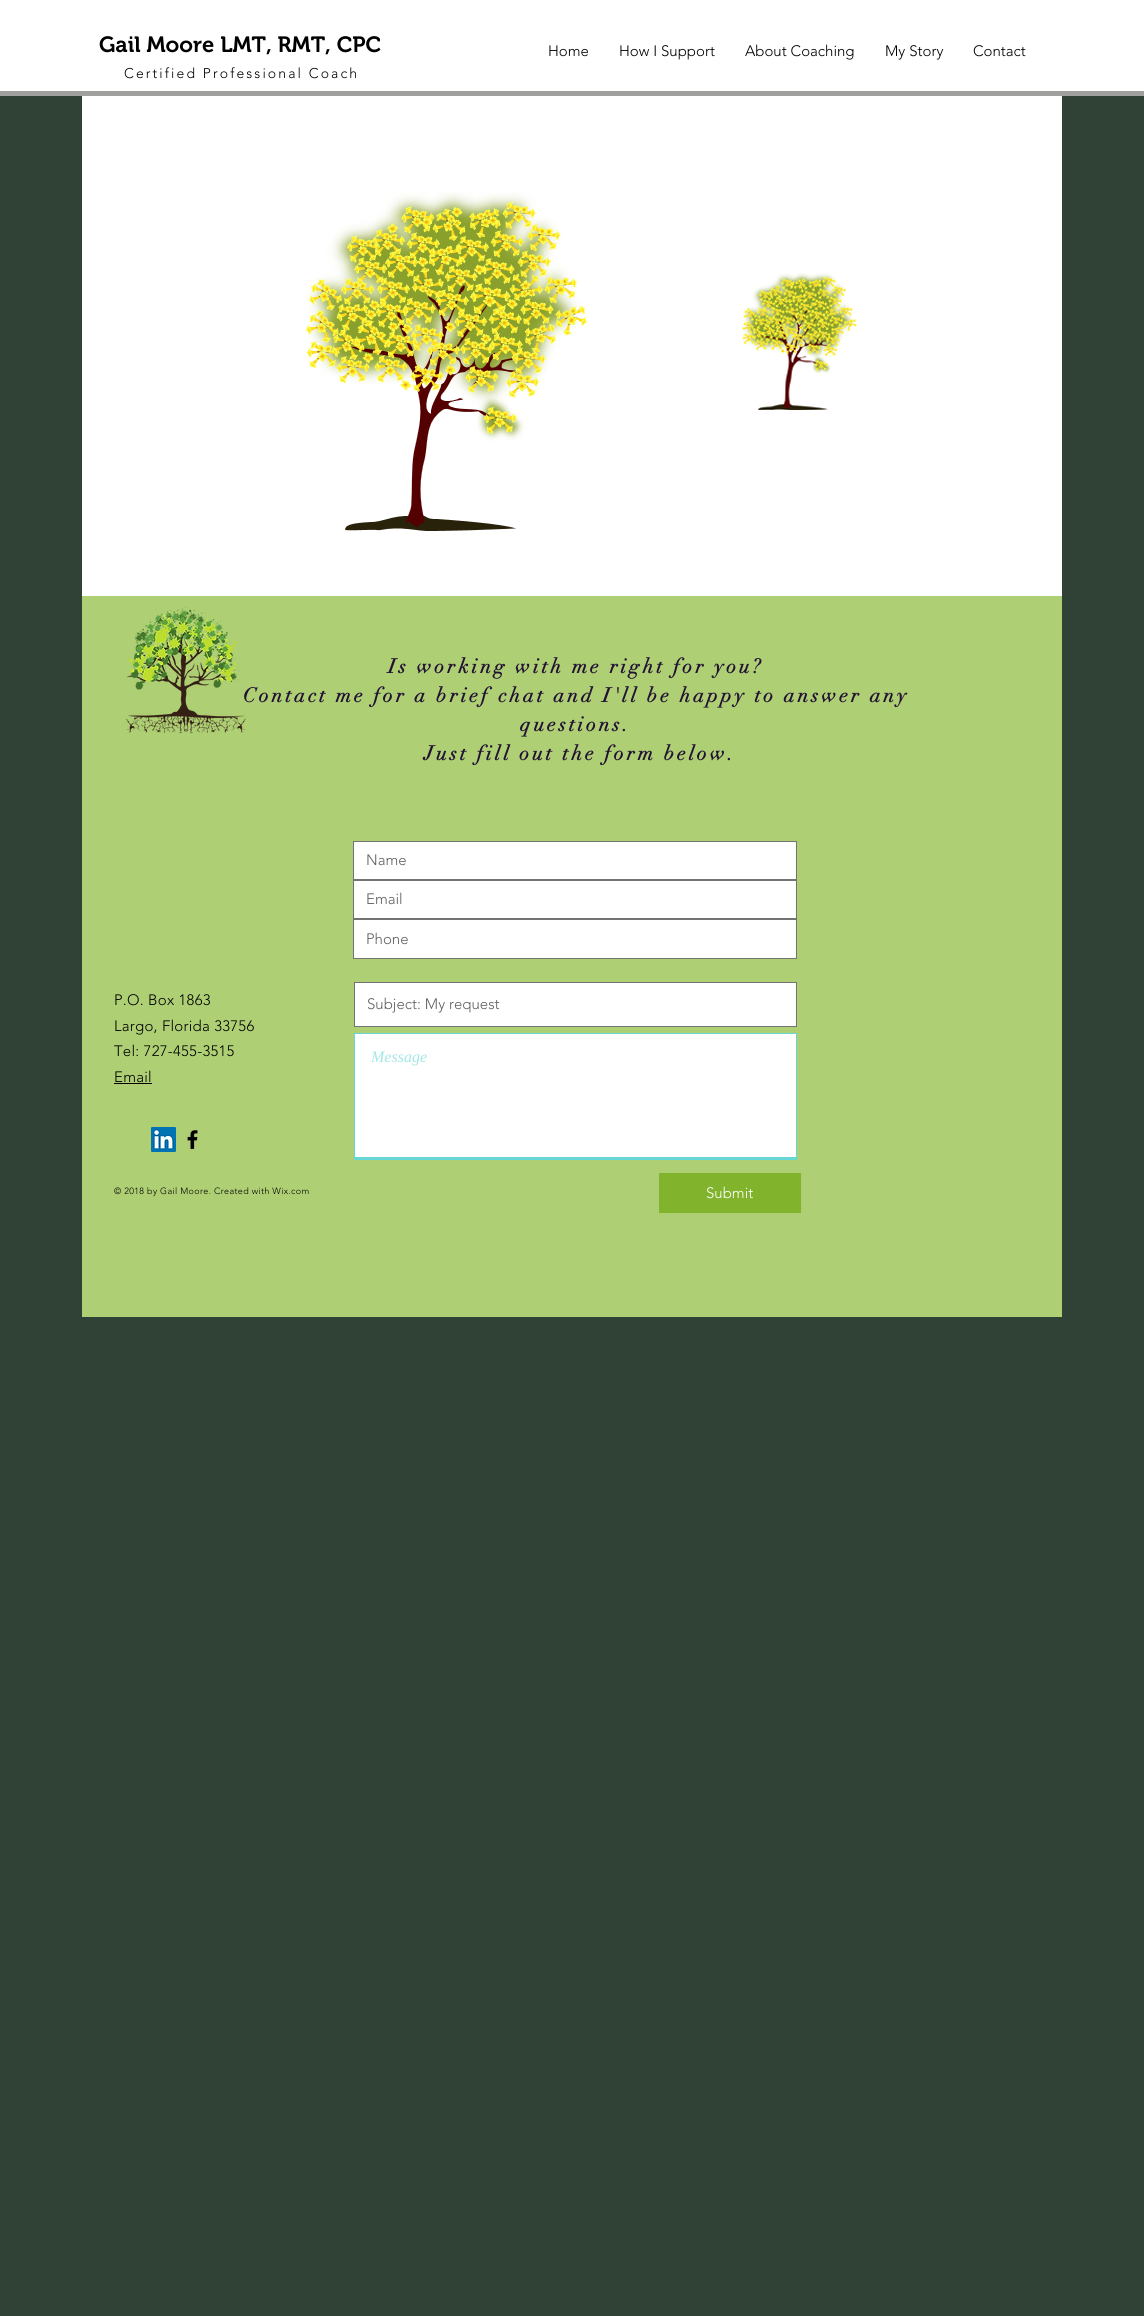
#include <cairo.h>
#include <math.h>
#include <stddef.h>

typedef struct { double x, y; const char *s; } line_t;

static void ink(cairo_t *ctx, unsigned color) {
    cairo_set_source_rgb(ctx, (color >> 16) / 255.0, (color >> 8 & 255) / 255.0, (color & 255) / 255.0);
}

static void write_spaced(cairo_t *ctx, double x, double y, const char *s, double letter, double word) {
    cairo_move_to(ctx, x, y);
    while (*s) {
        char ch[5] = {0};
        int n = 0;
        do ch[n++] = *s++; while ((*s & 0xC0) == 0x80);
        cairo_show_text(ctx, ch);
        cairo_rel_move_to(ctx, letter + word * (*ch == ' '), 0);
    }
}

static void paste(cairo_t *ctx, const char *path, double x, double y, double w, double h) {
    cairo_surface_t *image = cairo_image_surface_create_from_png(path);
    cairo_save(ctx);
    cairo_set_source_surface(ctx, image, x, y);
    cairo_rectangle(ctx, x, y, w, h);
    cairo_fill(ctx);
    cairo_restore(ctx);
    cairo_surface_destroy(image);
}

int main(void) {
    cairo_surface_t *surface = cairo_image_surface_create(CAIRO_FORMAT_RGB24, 1144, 2316);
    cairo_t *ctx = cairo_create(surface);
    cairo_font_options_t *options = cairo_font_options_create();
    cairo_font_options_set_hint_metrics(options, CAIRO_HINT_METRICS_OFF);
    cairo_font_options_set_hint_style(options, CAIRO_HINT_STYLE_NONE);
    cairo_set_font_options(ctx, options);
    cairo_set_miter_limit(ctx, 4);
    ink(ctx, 0x2F4235);
    cairo_paint(ctx);
    ink(ctx, 0xFFFFFF);
    cairo_rectangle(ctx, 0, 0, 1144, 91);
    cairo_fill(ctx);
    ink(ctx, 0xA0A09F);
    cairo_rectangle(ctx, 0, 91, 1144, 5);
    cairo_fill(ctx);
    cairo_select_font_face(ctx, "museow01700 SemiBold", CAIRO_FONT_SLANT_NORMAL, CAIRO_FONT_WEIGHT_NORMAL);
    cairo_set_font_size(ctx, 22);
    ink(ctx, 0x000000);
    cairo_move_to(ctx, 99, 52);
    cairo_show_text(ctx, "Gail Moore LMT, RMT, CPC");
    cairo_select_font_face(ctx, "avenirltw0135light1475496 Light", CAIRO_FONT_SLANT_NORMAL, CAIRO_FONT_WEIGHT_NORMAL);
    cairo_set_font_size(ctx, 15);
    {
        static const line_t items[] = {
            {548, 56, "Home"},
            {619, 56, "How I Support"},
            {745, 56, "About Coaching"},
            {885, 56, "My Story"},
            {973, 56, "Contact"},
        };
        for (size_t i = 0; i < sizeof items / sizeof *items; i++) {
            cairo_move_to(ctx, items[i].x, items[i].y);
            cairo_show_text(ctx, items[i].s);
        }
    }
    cairo_set_font_size(ctx, 14);
    write_spaced(ctx, 124, 78, "Certified Professional Coach", 2.1, 0);
    ink(ctx, 0xFFFFFF);
    cairo_rectangle(ctx, 82, 96, 980, 500);
    cairo_fill(ctx);
    paste(ctx, "media/1.png", 305, 192, 282, 339);
    paste(ctx, "media/2.png", 741, 273, 116, 137);
    ink(ctx, 0xAECF74);
    cairo_rectangle(ctx, 82, 596, 980, 721);
    cairo_fill(ctx);
    cairo_select_font_face(ctx, "didot", CAIRO_FONT_SLANT_NORMAL, CAIRO_FONT_WEIGHT_BOLD);
    cairo_set_font_size(ctx, 20);
    ink(ctx, 0x221133);
    write_spaced(ctx, 243, 702, "Contact me for a brief chat and I'll be happy to answer any", 3, 0);
    paste(ctx, "media/3.png", 126, 606, 120, 128);
    {
        static const line_t items[] = {
            {388, 673, "Is working with me right for you?"},
            {520, 731, "questions."},
            {424, 760, "Just fill out the form below."},
        };
        for (size_t i = 0; i < sizeof items / sizeof *items; i++) {
            write_spaced(ctx, items[i].x, items[i].y, items[i].s, 3, 0);
        }
    }
    cairo_select_font_face(ctx, "avenirltw0135light1475496 Light", CAIRO_FONT_SLANT_NORMAL, CAIRO_FONT_WEIGHT_NORMAL);
    cairo_set_font_size(ctx, 15);
    ink(ctx, 0x000000);
    {
        static const line_t items[] = {
            {114, 1005, "P.O. Box 1863"},
            {114, 1031, "Largo, Florida 33756"},
            {114, 1056, "Tel: 727-455-3515"},
            {114, 1082, "Email"},
        };
        for (size_t i = 0; i < sizeof items / sizeof *items; i++) {
            write_spaced(ctx, items[i].x, items[i].y, items[i].s, 0.25, 0);
        }
    }
    cairo_rectangle(ctx, 114, 1083, 38, 1);
    cairo_fill(ctx);
    ink(ctx, 0xFFFFFF);
    cairo_rectangle(ctx, 353.5, 841.5, 443, 38);
    cairo_fill_preserve(ctx);
    ink(ctx, 0x737373);
    cairo_set_line_width(ctx, 1);
    cairo_stroke(ctx);
    ink(ctx, 0x605E5E);
    cairo_move_to(ctx, 366, 865);
    cairo_show_text(ctx, "Name");
    ink(ctx, 0xFFFFFF);
    cairo_rectangle(ctx, 353.5, 880.5, 443, 38);
    cairo_fill_preserve(ctx);
    ink(ctx, 0x737373);
    cairo_stroke(ctx);
    ink(ctx, 0x605E5E);
    cairo_move_to(ctx, 366, 904);
    cairo_show_text(ctx, "Email");
    ink(ctx, 0xFFFFFF);
    cairo_rectangle(ctx, 353.5, 919.5, 443, 39);
    cairo_fill_preserve(ctx);
    ink(ctx, 0x737373);
    cairo_stroke(ctx);
    ink(ctx, 0x605E5E);
    cairo_move_to(ctx, 366, 944);
    cairo_show_text(ctx, "Phone");
    ink(ctx, 0xFFFFFF);
    cairo_rectangle(ctx, 354.5, 982.5, 442, 44);
    cairo_fill_preserve(ctx);
    ink(ctx, 0x737373);
    cairo_stroke(ctx);
    ink(ctx, 0x605E5E);
    cairo_move_to(ctx, 367, 1009);
    cairo_show_text(ctx, "Subject: My request");
    ink(ctx, 0x67D6D6);
    cairo_rectangle(ctx, 354, 1158, 443, 2);
    cairo_fill(ctx);
    ink(ctx, 0xFFFFFF);
    cairo_rectangle(ctx, 354.5, 1033.5, 442, 124);
    cairo_fill_preserve(ctx);
    ink(ctx, 0x67D6D6);
    cairo_stroke(ctx);
    cairo_select_font_face(ctx, "Liberation Serif", CAIRO_FONT_SLANT_ITALIC, CAIRO_FONT_WEIGHT_NORMAL);
    cairo_set_font_size(ctx, 16);
    ink(ctx, 0xA3E6E6);
    cairo_move_to(ctx, 371, 1062);
    cairo_show_text(ctx, "Message");
    ink(ctx, 0x82B32D);
    cairo_rectangle(ctx, 659, 1173, 142, 40);
    cairo_fill(ctx);
    cairo_select_font_face(ctx, "avenirltw0135light1475496 Light", CAIRO_FONT_SLANT_NORMAL, CAIRO_FONT_WEIGHT_NORMAL);
    cairo_set_font_size(ctx, 15);
    ink(ctx, 0xFFFFFF);
    cairo_move_to(ctx, 706, 1198);
    cairo_show_text(ctx, "Submit");
    paste(ctx, "media/4.png", 151, 1127, 25, 25);
    paste(ctx, "media/5.png", 187, 1130, 11, 20);
    cairo_set_font_size(ctx, 9);
    ink(ctx, 0x000000);
    write_spaced(ctx, 114, 1194, "© 2018 by Gail Moore. Created with Wix.com", 0.35, 0);
    cairo_surface_write_to_png(surface, "image.png");
    cairo_font_options_destroy(options);
    cairo_destroy(ctx);
    cairo_surface_destroy(surface);
    return 0;
}
